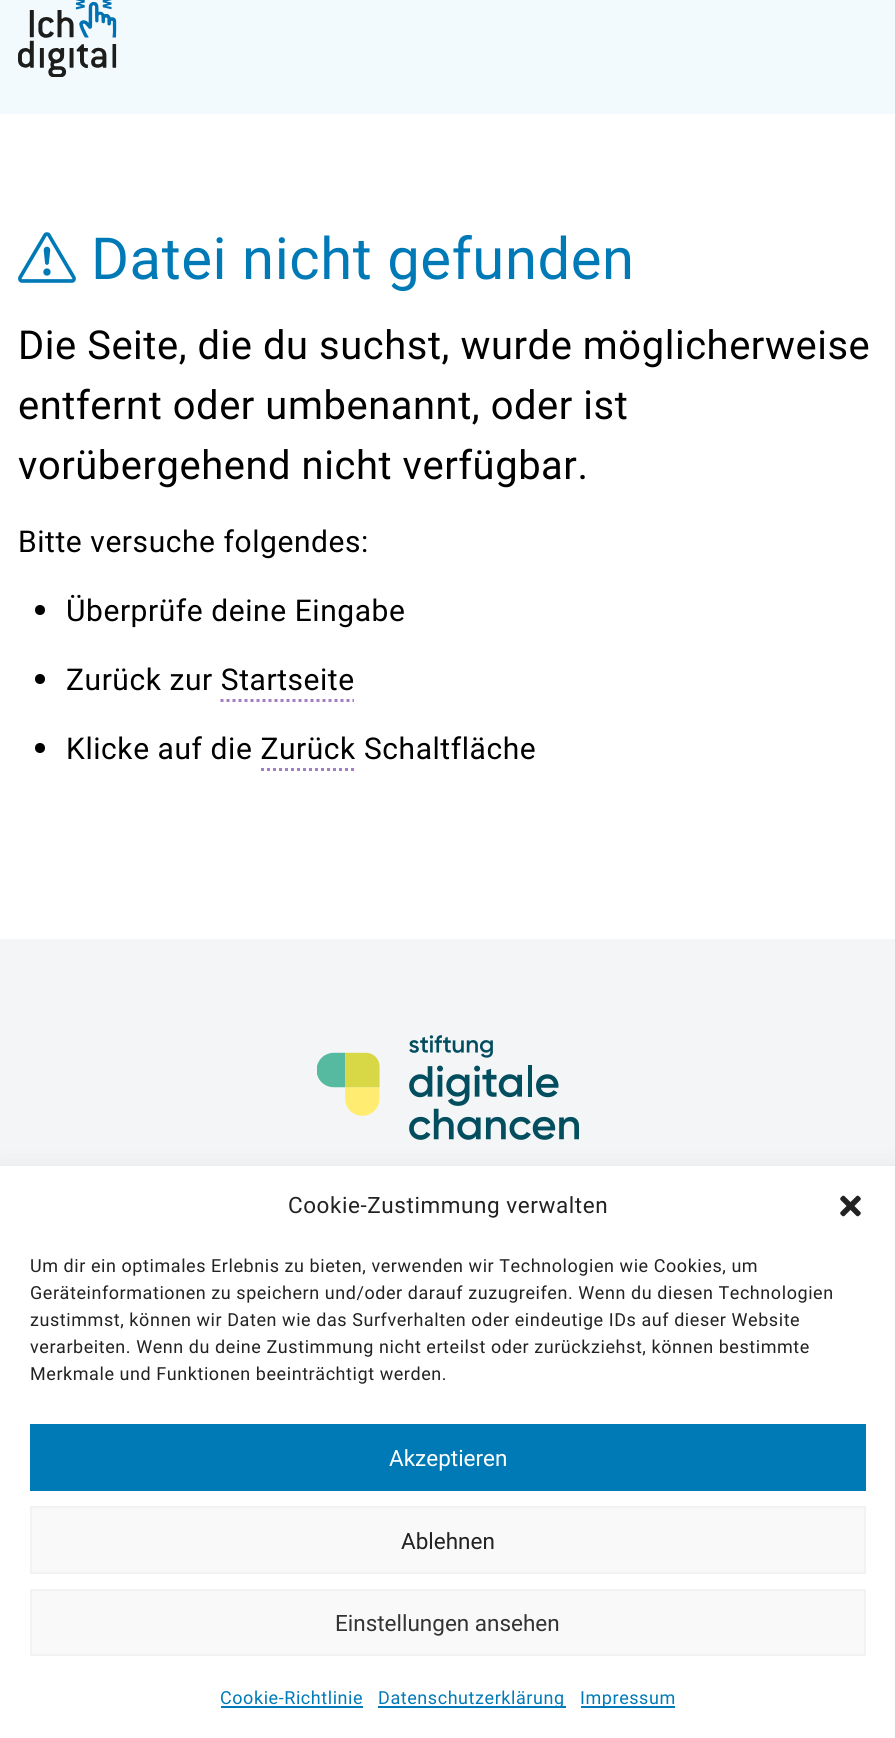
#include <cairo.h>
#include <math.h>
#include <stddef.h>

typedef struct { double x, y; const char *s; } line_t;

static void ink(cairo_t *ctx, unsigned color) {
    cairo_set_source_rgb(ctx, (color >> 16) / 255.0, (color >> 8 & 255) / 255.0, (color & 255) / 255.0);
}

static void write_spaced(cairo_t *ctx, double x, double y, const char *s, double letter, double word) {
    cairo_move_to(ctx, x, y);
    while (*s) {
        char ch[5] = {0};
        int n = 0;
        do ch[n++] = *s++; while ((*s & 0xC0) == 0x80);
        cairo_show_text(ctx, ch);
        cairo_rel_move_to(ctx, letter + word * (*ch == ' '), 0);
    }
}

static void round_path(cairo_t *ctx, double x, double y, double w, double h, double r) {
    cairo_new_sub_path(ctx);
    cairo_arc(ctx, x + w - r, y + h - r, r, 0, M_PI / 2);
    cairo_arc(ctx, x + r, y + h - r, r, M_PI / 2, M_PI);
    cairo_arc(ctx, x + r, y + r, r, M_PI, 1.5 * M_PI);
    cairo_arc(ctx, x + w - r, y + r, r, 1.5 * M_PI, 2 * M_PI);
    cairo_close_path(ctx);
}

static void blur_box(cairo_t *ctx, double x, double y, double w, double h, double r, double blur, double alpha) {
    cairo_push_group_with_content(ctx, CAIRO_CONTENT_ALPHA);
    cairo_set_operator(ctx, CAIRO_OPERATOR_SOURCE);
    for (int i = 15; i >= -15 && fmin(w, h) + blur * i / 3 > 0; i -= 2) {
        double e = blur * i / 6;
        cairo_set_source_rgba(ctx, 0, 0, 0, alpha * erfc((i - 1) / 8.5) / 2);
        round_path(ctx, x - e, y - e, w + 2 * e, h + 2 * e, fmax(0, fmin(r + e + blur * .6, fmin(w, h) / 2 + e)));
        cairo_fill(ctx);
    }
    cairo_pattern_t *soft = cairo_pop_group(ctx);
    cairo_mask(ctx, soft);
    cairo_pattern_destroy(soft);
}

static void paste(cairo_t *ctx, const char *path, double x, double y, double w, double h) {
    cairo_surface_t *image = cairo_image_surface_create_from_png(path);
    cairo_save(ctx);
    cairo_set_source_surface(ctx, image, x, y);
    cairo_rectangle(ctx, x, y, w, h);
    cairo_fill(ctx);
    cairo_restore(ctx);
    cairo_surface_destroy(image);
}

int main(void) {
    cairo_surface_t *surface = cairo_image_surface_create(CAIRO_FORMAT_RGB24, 895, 1738);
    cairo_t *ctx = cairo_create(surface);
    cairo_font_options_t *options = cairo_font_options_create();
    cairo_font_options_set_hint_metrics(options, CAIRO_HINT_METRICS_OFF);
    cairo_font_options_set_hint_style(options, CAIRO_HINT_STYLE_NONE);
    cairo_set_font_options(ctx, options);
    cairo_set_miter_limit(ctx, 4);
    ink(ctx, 0xFFFFFF);
    cairo_paint(ctx);
    ink(ctx, 0xF2FAFD);
    cairo_rectangle(ctx, 0, 0, 895, 114);
    cairo_fill(ctx);
    paste(ctx, "media/1.png", 18, 0, 99, 77);
    paste(ctx, "media/2.png", 18, 232, 58, 51);
    cairo_select_font_face(ctx, "Roboto", CAIRO_FONT_SLANT_NORMAL, CAIRO_FONT_WEIGHT_NORMAL);
    cairo_set_font_size(ctx, 58);
    ink(ctx, 0x007AB7);
    write_spaced(ctx, 91, 279, "Datei nicht gefunden", 0.57, 0);
    cairo_set_font_size(ctx, 39.9);
    ink(ctx, 0x000000);
    {
        static const line_t items[] = {
            {18, 359, "Die Seite, die du suchst, wurde möglicherweise"},
            {18, 419, "entfernt oder umbenannt, oder ist"},
            {18, 479, "vorübergehend nicht verfügbar."},
        };
        for (size_t i = 0; i < sizeof items / sizeof *items; i++) {
            write_spaced(ctx, items[i].x, items[i].y, items[i].s, 0.57, 0);
        }
    }
    cairo_set_font_size(ctx, 30);
    write_spaced(ctx, 18, 552, "Bitte versuche folgendes:", 0.57, 0);
    cairo_new_path(ctx);
    cairo_arc(ctx, 40, 610, 5, 0, 2 * M_PI);
    cairo_fill(ctx);
    write_spaced(ctx, 66, 621, "Überprüfe deine Eingabe", 0.57, 0);
    cairo_new_path(ctx);
    cairo_arc(ctx, 40, 679, 5, 0, 2 * M_PI);
    cairo_fill(ctx);
    write_spaced(ctx, 66, 690, "Zurück zur Startseite", 0.57, 0);
    cairo_new_path(ctx);
    cairo_move_to(ctx, 220.5, 700.5);
    cairo_line_to(ctx, 354, 700.5);
    ink(ctx, 0xA37EC6);
    cairo_set_line_width(ctx, 3);
    cairo_set_dash(ctx, (double[]){3, 3}, 2, 0);
    cairo_stroke(ctx);
    ink(ctx, 0x000000);
    cairo_arc(ctx, 40, 748, 5, 0, 2 * M_PI);
    cairo_fill(ctx);
    write_spaced(ctx, 66, 759, "Klicke auf die Zurück Schaltfläche", 0.57, 0);
    cairo_new_path(ctx);
    cairo_move_to(ctx, 261, 769.5);
    cairo_line_to(ctx, 355.5, 769.5);
    ink(ctx, 0xA37EC6);
    cairo_stroke(ctx);
    ink(ctx, 0xF4F5F6);
    cairo_rectangle(ctx, 0, 939, 895, 227);
    cairo_fill(ctx);
    paste(ctx, "media/3.png", 317, 1035, 262, 105);
    ink(ctx, 0x000000);
    blur_box(ctx, 0, 1181, 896, 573, 0, 15, 0.19);
    ink(ctx, 0xFFFFFF);
    cairo_rectangle(ctx, 0, 1166, 895, 572);
    cairo_fill(ctx);
    cairo_set_font_size(ctx, 22.5);
    ink(ctx, 0x222222);
    write_spaced(ctx, 288, 1213, "Cookie-Zustimmung verwalten", 0.57, 0);
    paste(ctx, "media/4.png", 840, 1195, 21, 22);
    cairo_set_font_size(ctx, 18);
    {
        static const line_t items[] = {
            {30, 1272, "Um dir ein optimales Erlebnis zu bieten, verwenden wir Technologien wie Cookies, um"},
            {30, 1299, "Geräteinformationen zu speichern und/oder darauf zuzugreifen. Wenn du diesen Technologien"},
            {30, 1326, "zustimmst, können wir Daten wie das Surfverhalten oder eindeutige IDs auf dieser Website"},
            {30, 1353, "verarbeiten. Wenn du deine Zustimmung nicht erteilst oder zurückziehst, können bestimmte"},
            {30, 1380, "Merkmale und Funktionen beeinträchtigt werden."},
        };
        for (size_t i = 0; i < sizeof items / sizeof *items; i++) {
            write_spaced(ctx, items[i].x, items[i].y, items[i].s, 0.57, 0);
        }
    }
    ink(ctx, 0x007AB7);
    cairo_rectangle(ctx, 30, 1424, 836, 67);
    cairo_fill(ctx);
    cairo_set_font_size(ctx, 22.5);
    ink(ctx, 0xFFFFFF);
    cairo_move_to(ctx, 389, 1466);
    cairo_show_text(ctx, "Akzeptieren");
    ink(ctx, 0xF9F9F9);
    cairo_rectangle(ctx, 31, 1507, 834, 66);
    cairo_fill_preserve(ctx);
    ink(ctx, 0xF2F2F2);
    cairo_set_line_width(ctx, 2);
    cairo_set_dash(ctx, NULL, 0, 0);
    cairo_stroke(ctx);
    ink(ctx, 0x222222);
    cairo_move_to(ctx, 401, 1549);
    cairo_show_text(ctx, "Ablehnen");
    ink(ctx, 0xF9F9F9);
    cairo_rectangle(ctx, 31, 1590, 834, 65);
    cairo_fill_preserve(ctx);
    ink(ctx, 0xF2F2F2);
    cairo_stroke(ctx);
    ink(ctx, 0x333333);
    cairo_move_to(ctx, 335, 1631);
    cairo_show_text(ctx, "Einstellungen ansehen");
    cairo_set_font_size(ctx, 18);
    ink(ctx, 0x007AB7);
    write_spaced(ctx, 220, 1704, "Cookie-Richtlinie", 0.57, 0);
    cairo_rectangle(ctx, 221, 1706, 142, 2);
    cairo_fill(ctx);
    cairo_rectangle(ctx, 378, 1706, 188, 2);
    cairo_fill(ctx);
    write_spaced(ctx, 378, 1704, "Datenschutzerklärung", 0.57, 0);
    cairo_rectangle(ctx, 581, 1706, 94, 2);
    cairo_fill(ctx);
    write_spaced(ctx, 580, 1704, "Impressum", 0.57, 0);
    cairo_surface_write_to_png(surface, "image.png");
    cairo_font_options_destroy(options);
    cairo_destroy(ctx);
    cairo_surface_destroy(surface);
    return 0;
}
